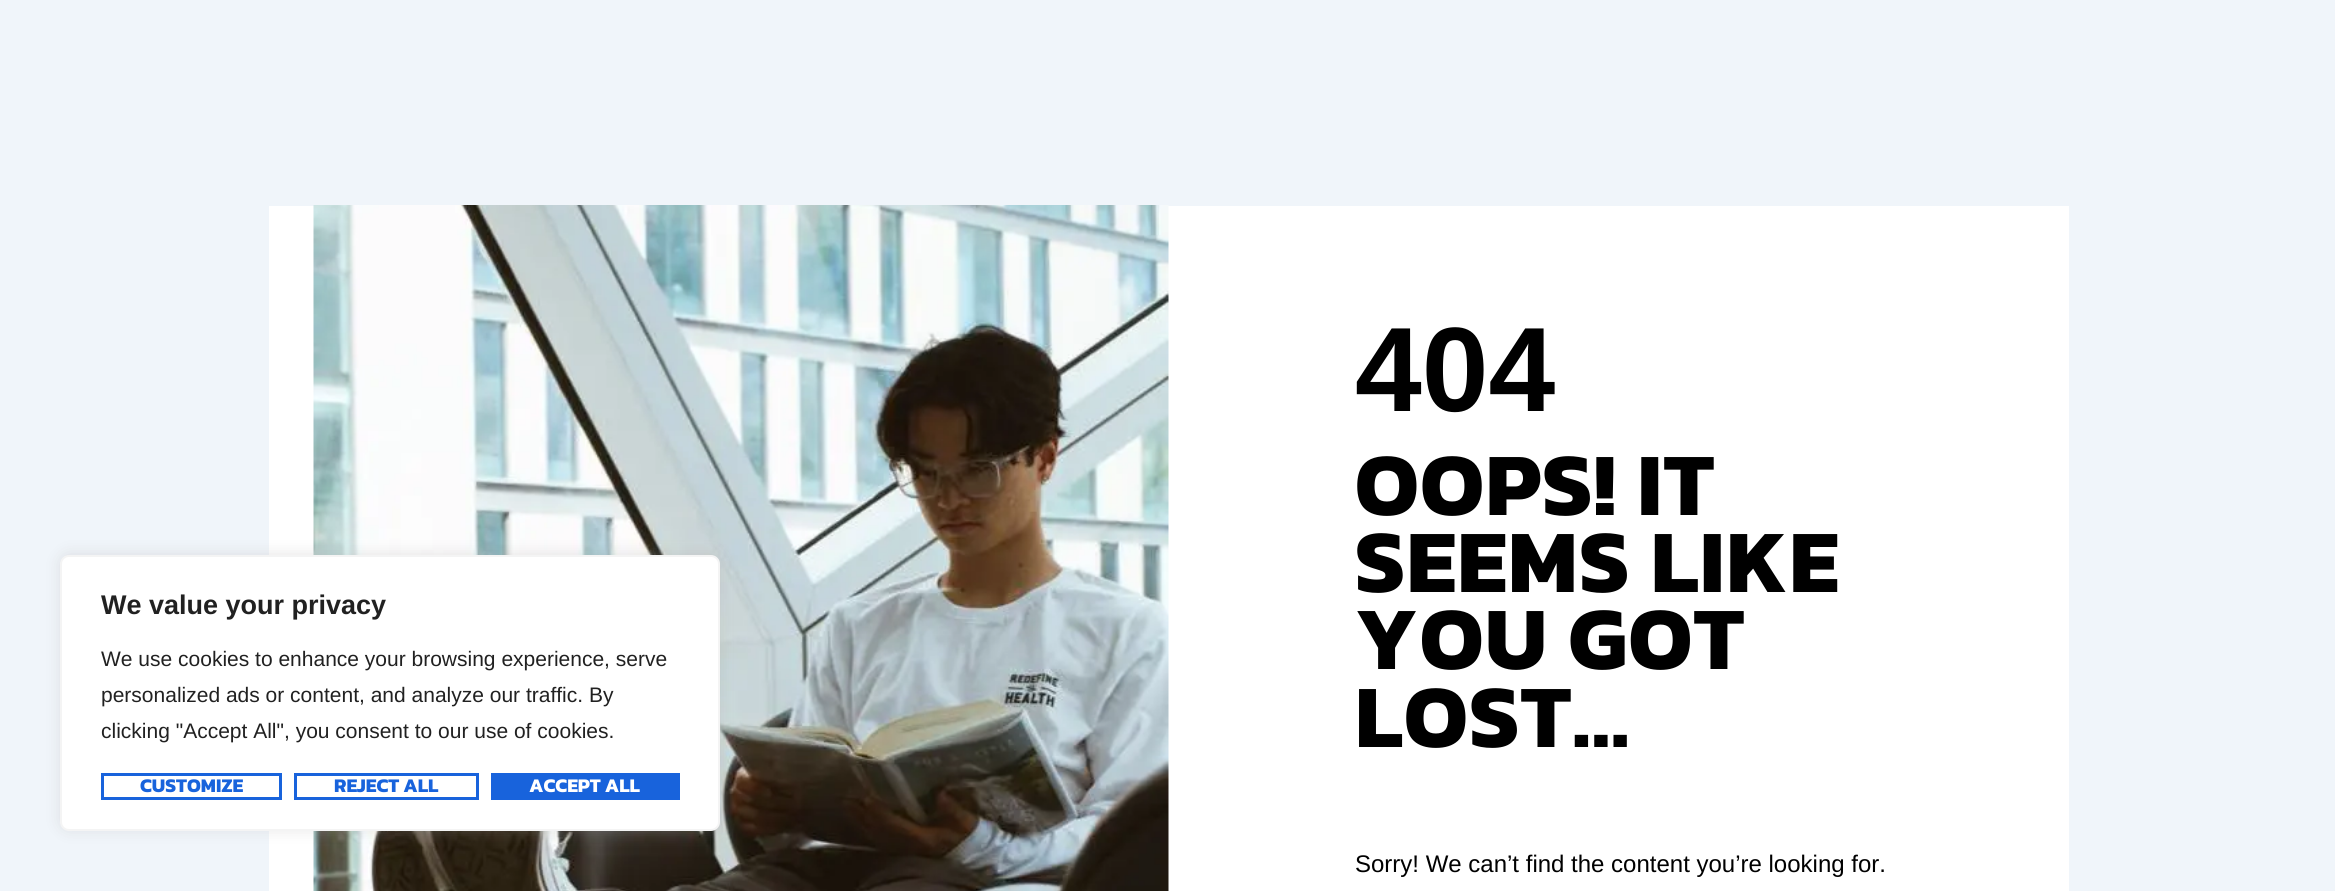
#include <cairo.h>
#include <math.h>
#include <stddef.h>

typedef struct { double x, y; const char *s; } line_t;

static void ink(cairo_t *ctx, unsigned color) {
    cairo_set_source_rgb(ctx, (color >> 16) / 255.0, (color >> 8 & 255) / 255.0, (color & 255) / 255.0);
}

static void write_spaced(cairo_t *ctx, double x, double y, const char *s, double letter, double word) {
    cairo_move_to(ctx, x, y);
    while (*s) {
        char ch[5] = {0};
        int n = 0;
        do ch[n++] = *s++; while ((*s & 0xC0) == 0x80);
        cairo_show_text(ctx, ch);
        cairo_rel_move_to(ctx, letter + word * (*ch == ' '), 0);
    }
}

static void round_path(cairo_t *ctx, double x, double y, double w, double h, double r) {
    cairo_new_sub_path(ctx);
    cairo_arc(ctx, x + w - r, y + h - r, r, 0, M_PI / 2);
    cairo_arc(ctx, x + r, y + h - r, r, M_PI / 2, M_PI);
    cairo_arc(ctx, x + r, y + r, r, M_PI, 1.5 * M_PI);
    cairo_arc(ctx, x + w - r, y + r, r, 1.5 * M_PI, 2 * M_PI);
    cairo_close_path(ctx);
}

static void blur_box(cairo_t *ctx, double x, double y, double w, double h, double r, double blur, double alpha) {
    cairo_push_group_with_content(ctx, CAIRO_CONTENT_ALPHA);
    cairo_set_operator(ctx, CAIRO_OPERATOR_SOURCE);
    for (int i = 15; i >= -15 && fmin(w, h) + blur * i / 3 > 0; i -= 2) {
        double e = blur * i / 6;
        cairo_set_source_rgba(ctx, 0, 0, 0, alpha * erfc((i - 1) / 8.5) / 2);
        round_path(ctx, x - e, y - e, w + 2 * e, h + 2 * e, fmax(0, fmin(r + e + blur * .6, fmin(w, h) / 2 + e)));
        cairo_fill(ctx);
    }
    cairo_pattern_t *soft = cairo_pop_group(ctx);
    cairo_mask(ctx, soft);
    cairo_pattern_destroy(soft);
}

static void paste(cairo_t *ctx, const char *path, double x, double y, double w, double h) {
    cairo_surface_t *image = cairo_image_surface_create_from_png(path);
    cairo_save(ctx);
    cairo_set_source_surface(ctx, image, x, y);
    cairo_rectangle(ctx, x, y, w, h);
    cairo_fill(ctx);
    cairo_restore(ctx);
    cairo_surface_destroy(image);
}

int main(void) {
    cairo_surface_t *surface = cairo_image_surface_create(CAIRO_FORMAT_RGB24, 2335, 891);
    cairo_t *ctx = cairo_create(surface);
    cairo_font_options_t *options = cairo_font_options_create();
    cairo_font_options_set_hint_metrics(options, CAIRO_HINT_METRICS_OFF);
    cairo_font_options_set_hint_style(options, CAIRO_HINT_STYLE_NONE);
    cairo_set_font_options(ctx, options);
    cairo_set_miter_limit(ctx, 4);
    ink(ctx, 0xF0F5FA);
    cairo_paint(ctx);
    ink(ctx, 0xFFFFFF);
    cairo_rectangle(ctx, 269, 206, 1800, 685);
    cairo_fill(ctx);
    paste(ctx, "media/1.png", 313, 205, 856, 686);
    ink(ctx, 0xACABAB);
    blur_box(ctx, 60, 554, 660, 276, 9, 7.5, 0.3);
    ink(ctx, 0xFFFFFF);
    round_path(ctx, 61, 556, 658, 274, 8);
    cairo_fill_preserve(ctx);
    ink(ctx, 0xF4F4F4);
    cairo_stroke(ctx);
    cairo_select_font_face(ctx, "Liberation Sans", CAIRO_FONT_SLANT_NORMAL, CAIRO_FONT_WEIGHT_BOLD);
    cairo_set_font_size(ctx, 27);
    ink(ctx, 0x212121);
    cairo_move_to(ctx, 101, 614);
    cairo_show_text(ctx, "We value your privacy");
    cairo_select_font_face(ctx, "Liberation Sans", CAIRO_FONT_SLANT_NORMAL, CAIRO_FONT_WEIGHT_NORMAL);
    cairo_set_font_size(ctx, 21);
    {
        static const line_t items[] = {
            {101, 666, "We use cookies to enhance your browsing experience, serve"},
            {101, 702, "personalized ads or content, and analyze our traffic. By"},
            {101, 738, "clicking \"Accept All\", you consent to our use of cookies."},
        };
        for (size_t i = 0; i < sizeof items / sizeof *items; i++) {
            cairo_move_to(ctx, items[i].x, items[i].y);
            cairo_show_text(ctx, items[i].s);
        }
    }
    cairo_rectangle(ctx, 102.5, 774.5, 178, 24);
    ink(ctx, 0x1863DC);
    cairo_set_line_width(ctx, 3);
    cairo_stroke(ctx);
    cairo_select_font_face(ctx, "Kanit", CAIRO_FONT_SLANT_NORMAL, CAIRO_FONT_WEIGHT_BOLD);
    cairo_set_font_size(ctx, 19.5);
    cairo_move_to(ctx, 140, 792);
    cairo_show_text(ctx, "CUSTOMIZE");
    cairo_rectangle(ctx, 295.5, 774.5, 182, 24);
    cairo_stroke(ctx);
    cairo_move_to(ctx, 334, 792);
    cairo_show_text(ctx, "REJECT ALL");
    cairo_rectangle(ctx, 491, 773, 189, 27);
    cairo_fill(ctx);
    ink(ctx, 0xFFFFFF);
    cairo_move_to(ctx, 529, 792);
    cairo_show_text(ctx, "ACCEPT ALL");
    cairo_select_font_face(ctx, "Liberation Sans", CAIRO_FONT_SLANT_NORMAL, CAIRO_FONT_WEIGHT_BOLD);
    cairo_set_font_size(ctx, 120);
    ink(ctx, 0x000000);
    cairo_move_to(ctx, 1355, 411);
    cairo_show_text(ctx, "404");
    cairo_select_font_face(ctx, "Kanit", CAIRO_FONT_SLANT_NORMAL, CAIRO_FONT_WEIGHT_BOLD);
    cairo_set_font_size(ctx, 90);
    {
        static const line_t items[] = {
            {1355, 515, "OOPS! IT"},
            {1355, 592, "SEEMS LIKE"},
            {1355, 669, "YOU GOT"},
            {1355, 747, "LOST..."},
        };
        for (size_t i = 0; i < sizeof items / sizeof *items; i++) {
            write_spaced(ctx, items[i].x, items[i].y, items[i].s, 1.5, 0);
        }
    }
    cairo_select_font_face(ctx, "Liberation Sans", CAIRO_FONT_SLANT_NORMAL, CAIRO_FONT_WEIGHT_NORMAL);
    cairo_set_font_size(ctx, 24);
    cairo_move_to(ctx, 1355, 872);
    cairo_show_text(ctx, "Sorry! We can’t find the content you’re looking for.");
    cairo_surface_write_to_png(surface, "image.png");
    cairo_font_options_destroy(options);
    cairo_destroy(ctx);
    cairo_surface_destroy(surface);
    return 0;
}
